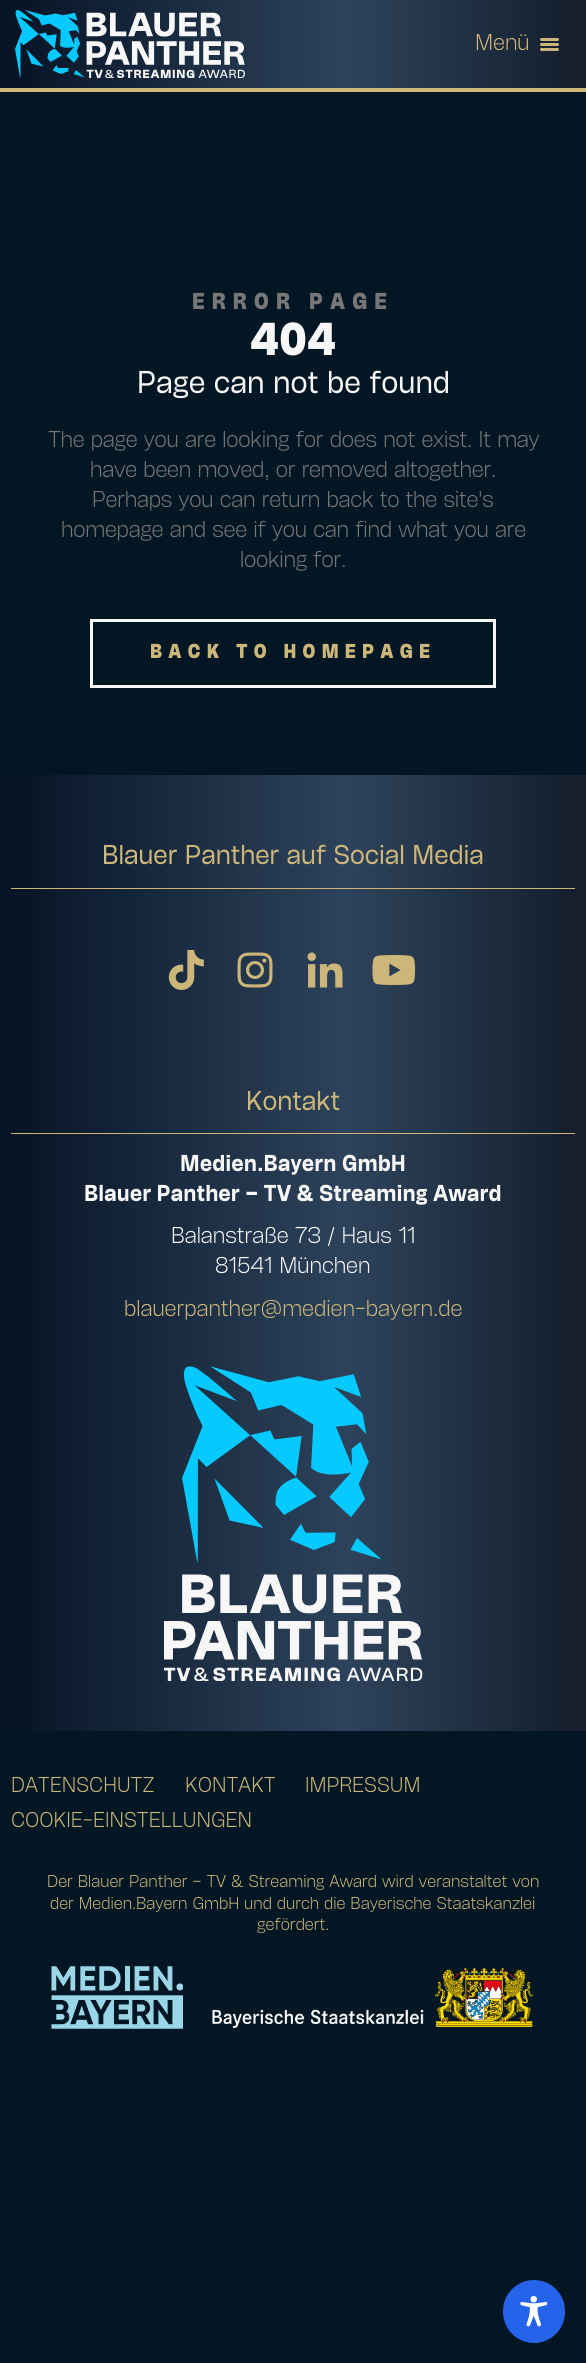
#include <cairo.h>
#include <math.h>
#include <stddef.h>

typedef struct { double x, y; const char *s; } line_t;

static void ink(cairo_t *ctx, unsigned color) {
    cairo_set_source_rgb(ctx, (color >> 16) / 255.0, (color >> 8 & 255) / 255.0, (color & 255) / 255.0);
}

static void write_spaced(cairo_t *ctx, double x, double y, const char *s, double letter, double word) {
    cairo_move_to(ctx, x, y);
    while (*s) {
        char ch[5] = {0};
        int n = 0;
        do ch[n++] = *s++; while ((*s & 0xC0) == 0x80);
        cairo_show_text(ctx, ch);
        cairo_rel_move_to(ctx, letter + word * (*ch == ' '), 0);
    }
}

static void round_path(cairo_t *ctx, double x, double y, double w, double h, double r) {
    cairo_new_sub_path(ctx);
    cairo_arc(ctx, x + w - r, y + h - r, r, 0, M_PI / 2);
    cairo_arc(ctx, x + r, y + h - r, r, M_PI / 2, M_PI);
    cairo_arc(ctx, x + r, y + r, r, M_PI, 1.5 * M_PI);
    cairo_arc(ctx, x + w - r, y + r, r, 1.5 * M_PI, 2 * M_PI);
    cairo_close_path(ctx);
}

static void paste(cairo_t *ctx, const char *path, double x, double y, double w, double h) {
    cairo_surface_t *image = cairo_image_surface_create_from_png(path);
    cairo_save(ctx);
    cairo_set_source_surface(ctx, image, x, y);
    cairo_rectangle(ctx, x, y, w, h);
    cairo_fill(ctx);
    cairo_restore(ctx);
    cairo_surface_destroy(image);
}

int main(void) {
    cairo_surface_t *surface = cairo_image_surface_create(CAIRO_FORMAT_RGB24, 586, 2363);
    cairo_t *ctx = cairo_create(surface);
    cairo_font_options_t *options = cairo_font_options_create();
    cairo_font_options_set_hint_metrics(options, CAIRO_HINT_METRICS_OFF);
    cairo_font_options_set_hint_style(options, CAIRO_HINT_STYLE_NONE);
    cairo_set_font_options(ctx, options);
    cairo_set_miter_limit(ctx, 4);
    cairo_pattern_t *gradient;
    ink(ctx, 0x021623);
    cairo_paint(ctx);
    ink(ctx, 0xCCB67A);
    cairo_rectangle(ctx, 0, 88, 586, 4);
    cairo_fill(ctx);
    gradient = cairo_pattern_create_linear(0, 44, 586, 44);
    cairo_pattern_add_color_stop_rgba(gradient, 0, 0.031, 0.082, 0.153, 1);
    cairo_pattern_add_color_stop_rgba(gradient, 0.5, 0.031, 0.082, 0.153, 1);
    cairo_pattern_add_color_stop_rgba(gradient, 0.6, 0.082, 0.122, 0.18, 1);
    cairo_pattern_add_color_stop_rgba(gradient, 1, 0.082, 0.122, 0.18, 1);
    cairo_set_source(ctx, gradient);
    cairo_pattern_destroy(gradient);
    cairo_rectangle(ctx, 0, 0, 586, 88);
    cairo_fill(ctx);
    gradient = cairo_pattern_create_linear(15, 44, 571, 44);
    cairo_pattern_add_color_stop_rgba(gradient, 0, 0.031, 0.082, 0.153, 1);
    cairo_pattern_add_color_stop_rgba(gradient, 0.6, 0.176, 0.263, 0.357, 1);
    cairo_pattern_add_color_stop_rgba(gradient, 1, 0.082, 0.122, 0.18, 1);
    cairo_set_source(ctx, gradient);
    cairo_pattern_destroy(gradient);
    cairo_rectangle(ctx, 31, 0, 528, 88);
    cairo_fill(ctx);
    paste(ctx, "media/1.png", 15, 10, 230, 69);
    cairo_select_font_face(ctx, "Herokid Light", CAIRO_FONT_SLANT_NORMAL, CAIRO_FONT_WEIGHT_NORMAL);
    cairo_set_font_size(ctx, 20);
    ink(ctx, 0xCCB67A);
    cairo_move_to(ctx, 475, 50);
    cairo_show_text(ctx, "Menü");
    round_path(ctx, 540, 38, 19, 3, 1.5);
    cairo_fill(ctx);
    round_path(ctx, 540, 43, 19, 3, 1.5);
    cairo_fill(ctx);
    round_path(ctx, 540, 48, 19, 3, 1.5);
    cairo_fill(ctx);
    cairo_select_font_face(ctx, "Herokid", CAIRO_FONT_SLANT_NORMAL, CAIRO_FONT_WEIGHT_BOLD);
    ink(ctx, 0x777777);
    write_spaced(ctx, 192, 309, "ERROR PAGE", 7, 0);
    cairo_set_font_size(ctx, 40);
    ink(ctx, 0xF7F7F7);
    cairo_move_to(ctx, 250, 355);
    cairo_show_text(ctx, "404");
    cairo_select_font_face(ctx, "Herokid", CAIRO_FONT_SLANT_NORMAL, CAIRO_FONT_WEIGHT_NORMAL);
    cairo_set_font_size(ctx, 27.5);
    cairo_move_to(ctx, 137, 393);
    cairo_show_text(ctx, "Page can not be found");
    cairo_select_font_face(ctx, "Herokid Light", CAIRO_FONT_SLANT_NORMAL, CAIRO_FONT_WEIGHT_NORMAL);
    cairo_set_font_size(ctx, 20);
    ink(ctx, 0x777777);
    {
        static const line_t items[] = {
            {48, 447, "The page you are looking for does not exist. It may"},
            {90, 477, "have been moved, or removed altogether."},
            {92, 507, "Perhaps you can return back to the site's"},
            {61, 537, "homepage and see if you can find what you are"},
            {240, 567, "looking for."},
        };
        for (size_t i = 0; i < sizeof items / sizeof *items; i++) {
            write_spaced(ctx, items[i].x, items[i].y, items[i].s, -0.2, 0);
        }
    }
    cairo_rectangle(ctx, 91.5, 620.5, 403, 66);
    ink(ctx, 0xF7F7F7);
    cairo_set_line_width(ctx, 3);
    cairo_stroke(ctx);
    cairo_select_font_face(ctx, "Herokid", CAIRO_FONT_SLANT_NORMAL, CAIRO_FONT_WEIGHT_BOLD);
    cairo_set_font_size(ctx, 17.5);
    ink(ctx, 0xCCB67A);
    write_spaced(ctx, 150, 658, "BACK TO HOMEPAGE", 6.1, 0);
    gradient = cairo_pattern_create_linear(0, 1253, 586, 1253);
    cairo_pattern_add_color_stop_rgba(gradient, 0, 0.031, 0.082, 0.153, 1);
    cairo_pattern_add_color_stop_rgba(gradient, 0.5, 0.031, 0.082, 0.153, 1);
    cairo_pattern_add_color_stop_rgba(gradient, 0.6, 0.082, 0.122, 0.18, 1);
    cairo_pattern_add_color_stop_rgba(gradient, 1, 0.082, 0.122, 0.18, 1);
    cairo_set_source(ctx, gradient);
    cairo_pattern_destroy(gradient);
    cairo_rectangle(ctx, 0, 775, 586, 956);
    cairo_fill(ctx);
    gradient = cairo_pattern_create_linear(15, 1253, 571, 1253);
    cairo_pattern_add_color_stop_rgba(gradient, 0, 0.031, 0.082, 0.153, 1);
    cairo_pattern_add_color_stop_rgba(gradient, 0.6, 0.176, 0.263, 0.357, 1);
    cairo_pattern_add_color_stop_rgba(gradient, 1, 0.082, 0.122, 0.18, 1);
    cairo_set_source(ctx, gradient);
    cairo_pattern_destroy(gradient);
    cairo_rectangle(ctx, 31, 775, 528, 956);
    cairo_fill(ctx);
    ink(ctx, 0xCCB67A);
    cairo_rectangle(ctx, 11, 888, 564, 1);
    cairo_fill(ctx);
    cairo_select_font_face(ctx, "Herokid", CAIRO_FONT_SLANT_NORMAL, CAIRO_FONT_WEIGHT_NORMAL);
    cairo_set_font_size(ctx, 23.75);
    cairo_move_to(ctx, 102, 864);
    cairo_show_text(ctx, "Blauer Panther auf Social Media");
    paste(ctx, "media/2.png", 168, 950, 36, 40);
    paste(ctx, "media/3.png", 237, 952, 36, 36);
    paste(ctx, "media/4.png", 307, 952, 36, 36);
    paste(ctx, "media/5.png", 372, 955, 44, 30);
    cairo_rectangle(ctx, 11, 1133, 564, 1);
    cairo_fill(ctx);
    cairo_move_to(ctx, 246, 1110);
    cairo_show_text(ctx, "Kontakt");
    cairo_select_font_face(ctx, "Herokid SemiBold", CAIRO_FONT_SLANT_NORMAL, CAIRO_FONT_WEIGHT_NORMAL);
    cairo_set_font_size(ctx, 20);
    ink(ctx, 0xF7F7F7);
    cairo_move_to(ctx, 180, 1171);
    cairo_show_text(ctx, "Medien.Bayern GmbH");
    cairo_move_to(ctx, 84, 1201);
    cairo_show_text(ctx, "Blauer Panther – TV & Streaming Award");
    cairo_select_font_face(ctx, "Herokid Light", CAIRO_FONT_SLANT_NORMAL, CAIRO_FONT_WEIGHT_NORMAL);
    cairo_move_to(ctx, 171, 1243);
    cairo_show_text(ctx, "Balanstraße 73 / Haus 11");
    cairo_move_to(ctx, 215, 1273);
    cairo_show_text(ctx, "81541 München");
    ink(ctx, 0xCCB67A);
    cairo_move_to(ctx, 124, 1316);
    cairo_show_text(ctx, "blauerpanther@medien-bayern.de");
    paste(ctx, "media/6.png", 164, 1366, 259, 315);
    cairo_set_font_size(ctx, 18.75);
    {
        static const line_t items[] = {
            {11, 1792, "DATENSCHUTZ"},
            {185, 1792, "KONTAKT"},
            {305, 1792, "IMPRESSUM"},
            {11, 1827, "COOKIE-EINSTELLUNGEN"},
        };
        for (size_t i = 0; i < sizeof items / sizeof *items; i++) {
            cairo_move_to(ctx, items[i].x, items[i].y);
            cairo_show_text(ctx, items[i].s);
        }
    }
    cairo_set_font_size(ctx, 15);
    {
        static const line_t items[] = {
            {47, 1887, "Der Blauer Panther – TV & Streaming Award wird veranstaltet von"},
            {50, 1909, "der Medien.Bayern GmbH und durch die Bayerische Staatskanzlei"},
            {257, 1930, "gefördert."},
        };
        for (size_t i = 0; i < sizeof items / sizeof *items; i++) {
            cairo_move_to(ctx, items[i].x, items[i].y);
            cairo_show_text(ctx, items[i].s);
        }
    }
    paste(ctx, "media/7.png", 51, 1966, 132, 63);
    paste(ctx, "media/8.png", 212, 1967, 321, 61);
    ink(ctx, 0x2563EB);
    round_path(ctx, 503, 2280, 62, 63, 31);
    cairo_fill(ctx);
    paste(ctx, "media/9.png", 520, 2296, 28, 31);
    cairo_surface_write_to_png(surface, "image.png");
    cairo_font_options_destroy(options);
    cairo_destroy(ctx);
    cairo_surface_destroy(surface);
    return 0;
}
